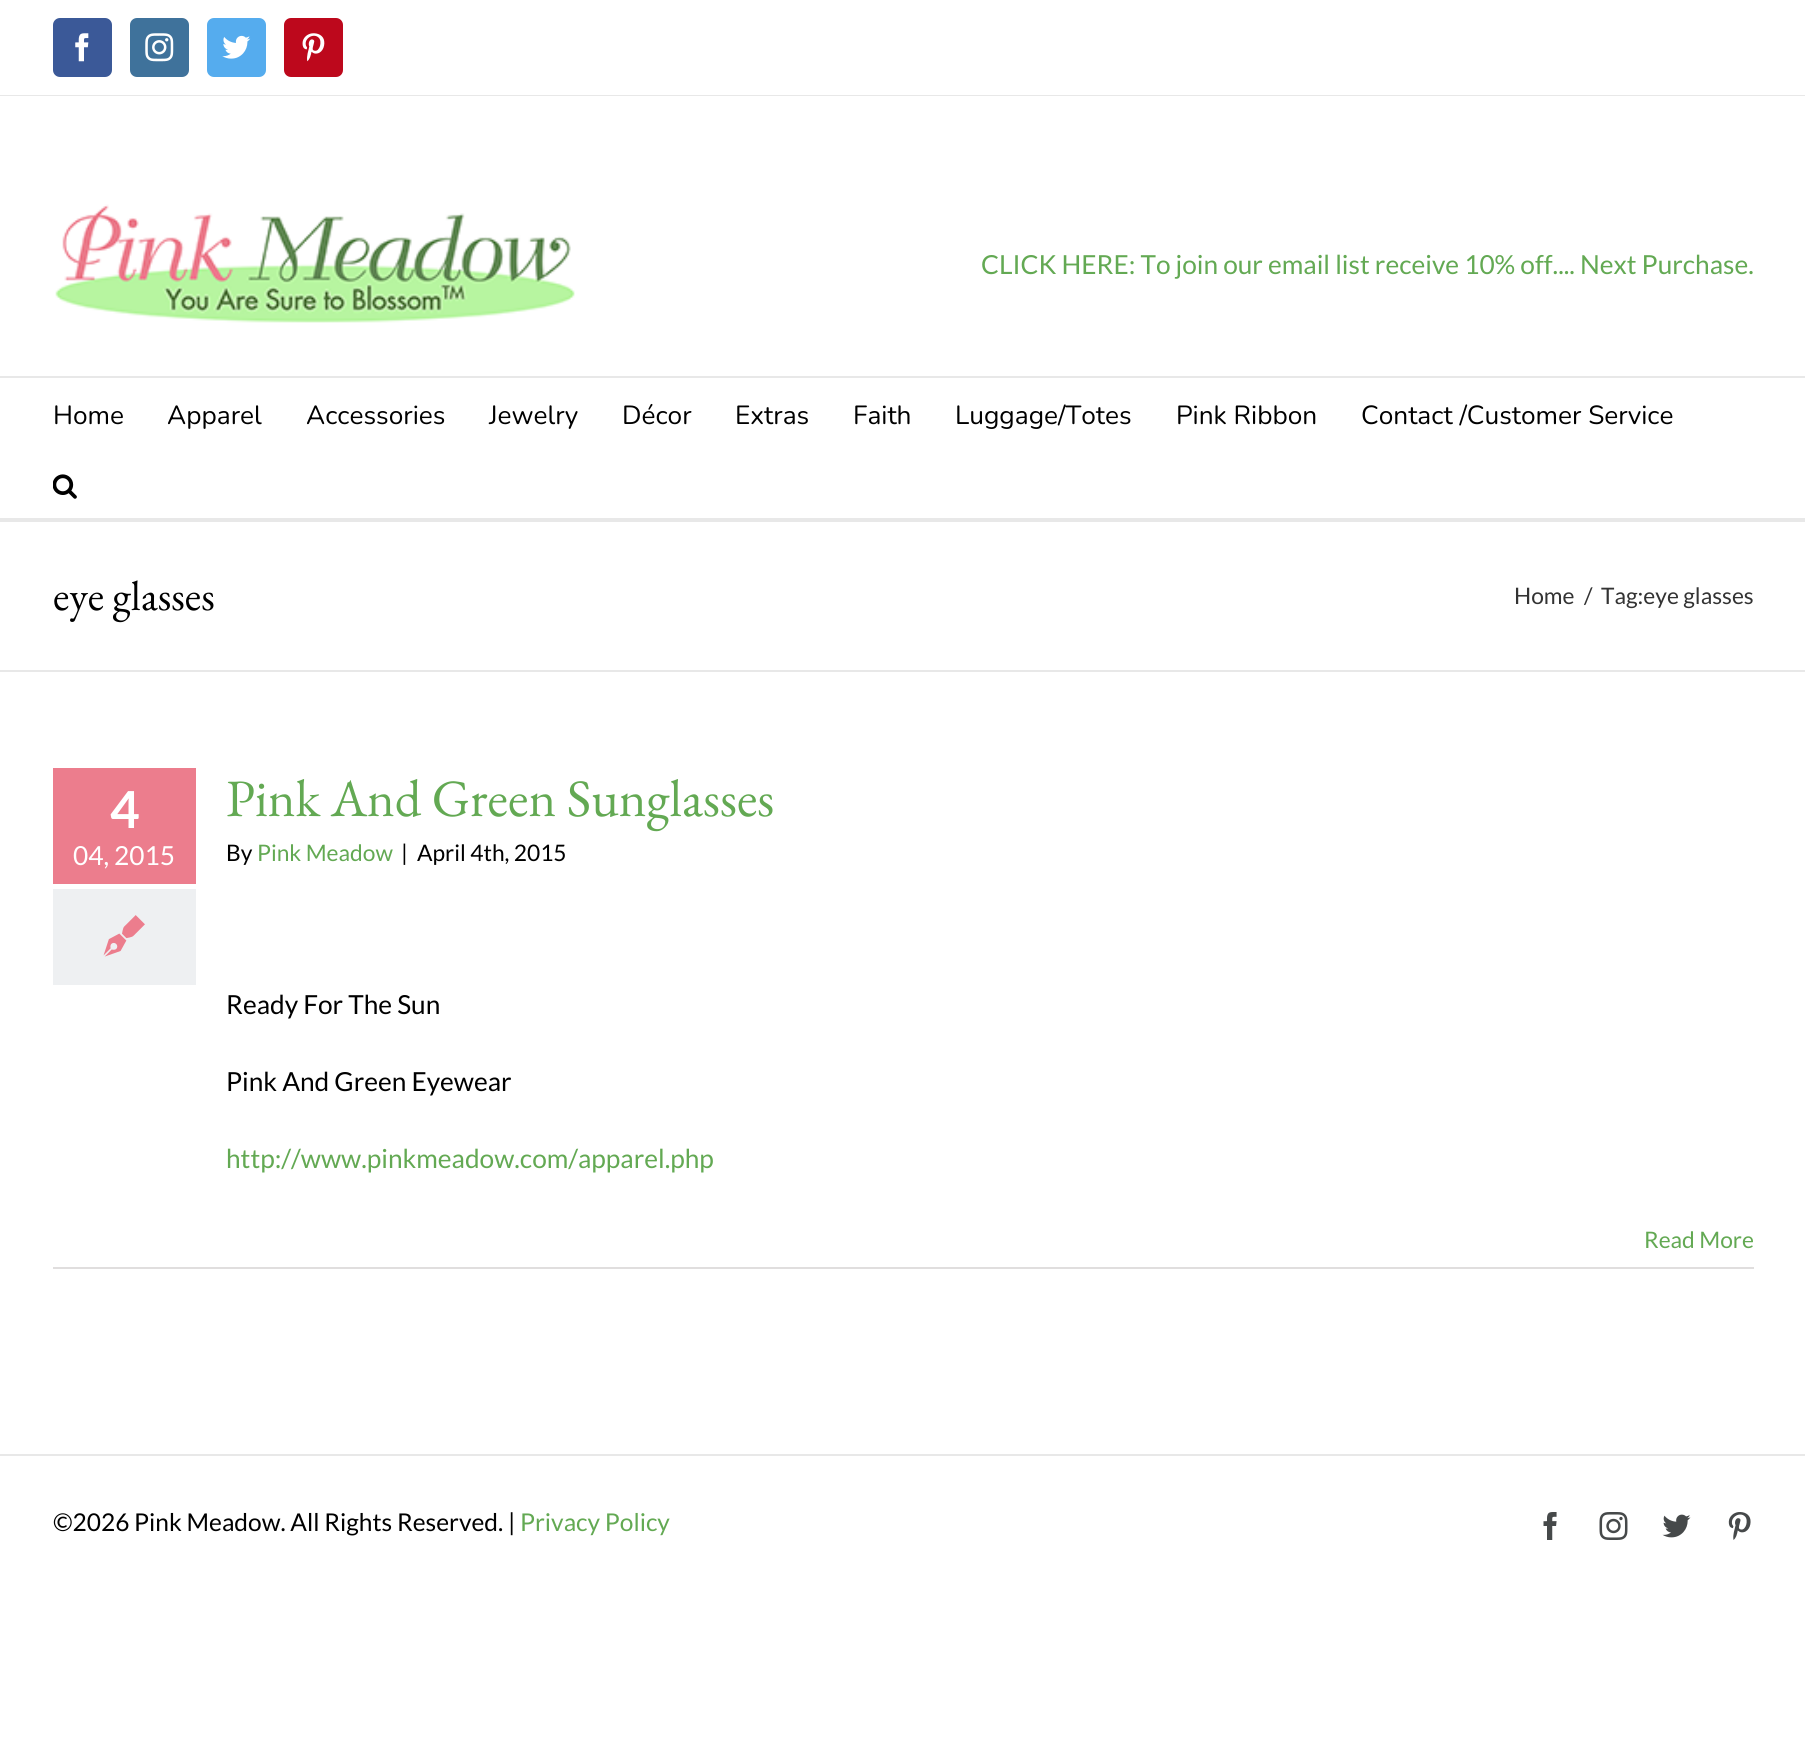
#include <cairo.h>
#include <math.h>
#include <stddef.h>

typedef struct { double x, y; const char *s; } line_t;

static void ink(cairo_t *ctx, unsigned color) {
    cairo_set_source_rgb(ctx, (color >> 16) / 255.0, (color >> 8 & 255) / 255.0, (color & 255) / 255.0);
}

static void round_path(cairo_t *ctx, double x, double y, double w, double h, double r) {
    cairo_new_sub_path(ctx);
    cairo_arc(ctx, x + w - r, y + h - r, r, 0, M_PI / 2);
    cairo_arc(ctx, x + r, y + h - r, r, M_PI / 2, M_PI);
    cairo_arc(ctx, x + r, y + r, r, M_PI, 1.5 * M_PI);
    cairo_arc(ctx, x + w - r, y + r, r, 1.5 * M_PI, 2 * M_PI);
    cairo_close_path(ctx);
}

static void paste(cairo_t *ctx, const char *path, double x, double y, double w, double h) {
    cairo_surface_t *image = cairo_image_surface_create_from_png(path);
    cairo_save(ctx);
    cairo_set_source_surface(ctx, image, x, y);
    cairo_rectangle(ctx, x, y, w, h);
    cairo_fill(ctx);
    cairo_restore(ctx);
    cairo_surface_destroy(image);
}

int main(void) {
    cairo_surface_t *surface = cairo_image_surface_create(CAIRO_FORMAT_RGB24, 1805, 1750);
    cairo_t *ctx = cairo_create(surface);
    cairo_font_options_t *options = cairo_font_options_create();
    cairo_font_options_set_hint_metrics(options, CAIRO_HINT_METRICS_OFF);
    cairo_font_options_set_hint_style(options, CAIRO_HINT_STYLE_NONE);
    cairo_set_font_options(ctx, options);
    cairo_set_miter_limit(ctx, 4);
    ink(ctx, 0xFFFFFF);
    cairo_paint(ctx);
    ink(ctx, 0xE8E8E8);
    cairo_rectangle(ctx, 0, 95, 1805, 1);
    cairo_fill(ctx);
    ink(ctx, 0x3B5998);
    round_path(ctx, 54, 19, 57, 57, 6);
    cairo_fill_preserve(ctx);
    cairo_stroke(ctx);
    paste(ctx, "media/1.png", 75, 33, 14, 29);
    ink(ctx, 0x3F729B);
    round_path(ctx, 131, 19, 57, 57, 6);
    cairo_fill_preserve(ctx);
    cairo_stroke(ctx);
    paste(ctx, "media/2.png", 145, 33, 29, 29);
    ink(ctx, 0x55ACEE);
    round_path(ctx, 208, 19, 57, 57, 6);
    cairo_fill_preserve(ctx);
    cairo_stroke(ctx);
    paste(ctx, "media/3.png", 222, 35, 29, 24);
    ink(ctx, 0xBD081C);
    round_path(ctx, 285, 19, 57, 57, 6);
    cairo_fill_preserve(ctx);
    cairo_stroke(ctx);
    paste(ctx, "media/4.png", 302, 33, 23, 29);
    ink(ctx, 0xE8E8E8);
    cairo_rectangle(ctx, 0, 376, 1805, 2);
    cairo_fill(ctx);
    paste(ctx, "media/5.png", 55, 204, 520, 119);
    cairo_select_font_face(ctx, "Lato", CAIRO_FONT_SLANT_NORMAL, CAIRO_FONT_WEIGHT_NORMAL);
    cairo_set_font_size(ctx, 26.25);
    ink(ctx, 0x63A953);
    cairo_move_to(ctx, 981, 274);
    cairo_show_text(ctx, "CLICK HERE: To join our email list receive 10% off.... Next Purchase.");
    cairo_select_font_face(ctx, "Nunito ExtraLight", CAIRO_FONT_SLANT_NORMAL, CAIRO_FONT_WEIGHT_NORMAL);
    ink(ctx, 0x000000);
    {
        static const line_t items[] = {
            {53, 424, "Home"},
            {167, 424, "Apparel"},
            {306, 424, "Accessories"},
            {489, 424, "Jewelry"},
            {622, 424, "Décor"},
            {735, 424, "Extras"},
            {853, 424, "Faith"},
            {955, 424, "Luggage/Totes"},
            {1176, 424, "Pink Ribbon"},
            {1361, 424, "Contact /Customer Service"},
        };
        for (size_t i = 0; i < sizeof items / sizeof *items; i++) {
            cairo_move_to(ctx, items[i].x, items[i].y);
            cairo_show_text(ctx, items[i].s);
        }
    }
    paste(ctx, "media/6.png", 53, 474, 24, 25);
    ink(ctx, 0xE8E8E8);
    cairo_rectangle(ctx, 0, 518, 1805, 4);
    cairo_fill(ctx);
    cairo_rectangle(ctx, 0, 670, 1805, 2);
    cairo_fill(ctx);
    cairo_select_font_face(ctx, "EB Garamond", CAIRO_FONT_SLANT_NORMAL, CAIRO_FONT_WEIGHT_NORMAL);
    cairo_set_font_size(ctx, 42);
    ink(ctx, 0x000000);
    cairo_move_to(ctx, 53, 610);
    cairo_show_text(ctx, "eye glasses");
    cairo_select_font_face(ctx, "Lato", CAIRO_FONT_SLANT_NORMAL, CAIRO_FONT_WEIGHT_NORMAL);
    cairo_set_font_size(ctx, 22.75);
    ink(ctx, 0x333333);
    {
        static const line_t items[] = {
            {1514, 604, "Home"},
            {1584, 604, "/"},
            {1601, 604, "Tag:eye glasses"},
        };
        for (size_t i = 0; i < sizeof items / sizeof *items; i++) {
            cairo_move_to(ctx, items[i].x, items[i].y);
            cairo_show_text(ctx, items[i].s);
        }
    }
    ink(ctx, 0xEC7D8D);
    cairo_rectangle(ctx, 53, 768, 143, 116);
    cairo_fill(ctx);
    cairo_select_font_face(ctx, "Lato", CAIRO_FONT_SLANT_NORMAL, CAIRO_FONT_WEIGHT_BOLD);
    cairo_set_font_size(ctx, 51);
    ink(ctx, 0xFFFFFF);
    cairo_move_to(ctx, 110, 828);
    cairo_show_text(ctx, "4");
    cairo_select_font_face(ctx, "Lato", CAIRO_FONT_SLANT_NORMAL, CAIRO_FONT_WEIGHT_NORMAL);
    cairo_set_font_size(ctx, 26.25);
    cairo_move_to(ctx, 73, 865);
    cairo_show_text(ctx, "04, 2015");
    ink(ctx, 0xEEF0F2);
    cairo_rectangle(ctx, 53, 889, 143, 96);
    cairo_fill(ctx);
    paste(ctx, "media/7.png", 103, 915, 42, 42);
    cairo_select_font_face(ctx, "EB Garamond", CAIRO_FONT_SLANT_NORMAL, CAIRO_FONT_WEIGHT_NORMAL);
    cairo_set_font_size(ctx, 52.5);
    ink(ctx, 0x63A953);
    cairo_move_to(ctx, 226, 816);
    cairo_show_text(ctx, "Pink And Green Sunglasses");
    cairo_select_font_face(ctx, "Lato", CAIRO_FONT_SLANT_NORMAL, CAIRO_FONT_WEIGHT_NORMAL);
    cairo_set_font_size(ctx, 22.75);
    ink(ctx, 0x000000);
    cairo_move_to(ctx, 226, 861);
    cairo_show_text(ctx, "By");
    ink(ctx, 0x63A953);
    cairo_move_to(ctx, 257, 861);
    cairo_show_text(ctx, "Pink Meadow");
    ink(ctx, 0x000000);
    cairo_move_to(ctx, 401, 861);
    cairo_show_text(ctx, "|");
    cairo_move_to(ctx, 417, 861);
    cairo_show_text(ctx, "April 4th, 2015");
    cairo_set_font_size(ctx, 26.25);
    cairo_move_to(ctx, 226, 1014);
    cairo_show_text(ctx, "Ready For The Sun");
    cairo_move_to(ctx, 226, 1091);
    cairo_show_text(ctx, "Pink And Green Eyewear");
    ink(ctx, 0x63A953);
    cairo_move_to(ctx, 226, 1168);
    cairo_show_text(ctx, "http://www.pinkmeadow.com/apparel.php");
    ink(ctx, 0xE0DEDE);
    cairo_rectangle(ctx, 53, 1267, 1701, 2);
    cairo_fill(ctx);
    cairo_set_font_size(ctx, 22.75);
    ink(ctx, 0x63A953);
    cairo_move_to(ctx, 1644, 1248);
    cairo_show_text(ctx, "Read More");
    ink(ctx, 0xE8E8E8);
    cairo_rectangle(ctx, 0, 1454, 1805, 2);
    cairo_fill(ctx);
    cairo_set_font_size(ctx, 24.5);
    ink(ctx, 0x000000);
    cairo_move_to(ctx, 53, 1531);
    cairo_show_text(ctx, "©2026 Pink Meadow. All Rights Reserved. |");
    ink(ctx, 0x63A953);
    cairo_move_to(ctx, 520, 1531);
    cairo_show_text(ctx, "Privacy Policy");
    paste(ctx, "media/8.png", 1543, 1512, 14, 28);
    paste(ctx, "media/9.png", 1599, 1512, 29, 28);
    paste(ctx, "media/10.png", 1662, 1514, 29, 24);
    paste(ctx, "media/11.png", 1728, 1512, 23, 28);
    cairo_surface_write_to_png(surface, "image.png");
    cairo_font_options_destroy(options);
    cairo_destroy(ctx);
    cairo_surface_destroy(surface);
    return 0;
}
